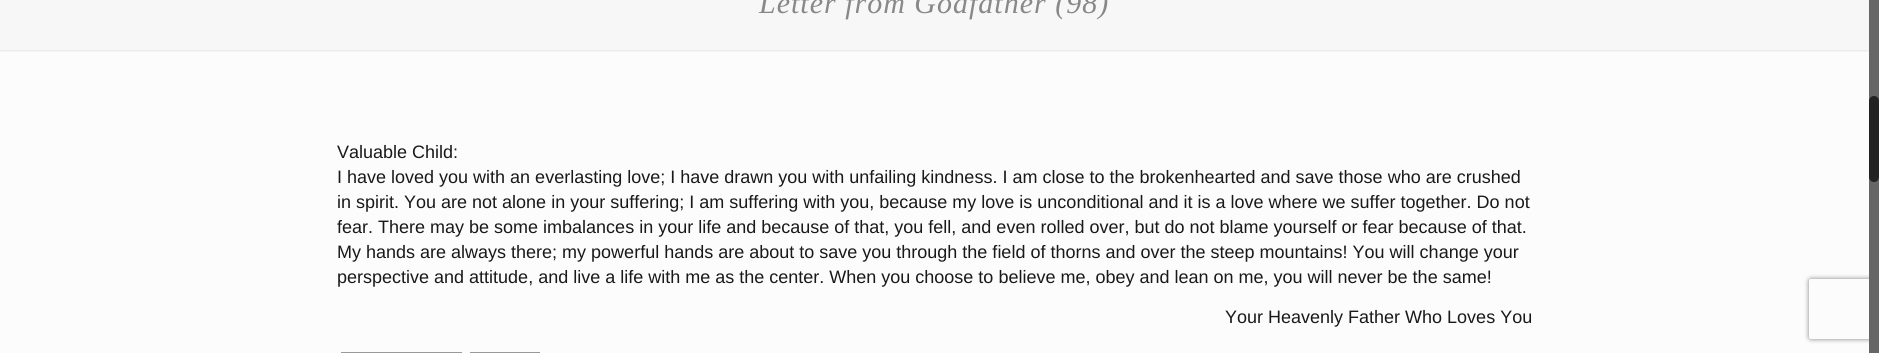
#include <cairo.h>
#include <math.h>
#include <stddef.h>

typedef struct { double x, y; const char *s; } line_t;

static void ink(cairo_t *ctx, unsigned color) {
    cairo_set_source_rgb(ctx, (color >> 16) / 255.0, (color >> 8 & 255) / 255.0, (color & 255) / 255.0);
}

static void write_spaced(cairo_t *ctx, double x, double y, const char *s, double letter, double word) {
    cairo_move_to(ctx, x, y);
    while (*s) {
        char ch[5] = {0};
        int n = 0;
        do ch[n++] = *s++; while ((*s & 0xC0) == 0x80);
        cairo_show_text(ctx, ch);
        cairo_rel_move_to(ctx, letter + word * (*ch == ' '), 0);
    }
}

static void round_path(cairo_t *ctx, double x, double y, double w, double h, double r) {
    cairo_new_sub_path(ctx);
    cairo_arc(ctx, x + w - r, y + h - r, r, 0, M_PI / 2);
    cairo_arc(ctx, x + r, y + h - r, r, M_PI / 2, M_PI);
    cairo_arc(ctx, x + r, y + r, r, M_PI, 1.5 * M_PI);
    cairo_arc(ctx, x + w - r, y + r, r, 1.5 * M_PI, 2 * M_PI);
    cairo_close_path(ctx);
}

static void blur_box(cairo_t *ctx, double x, double y, double w, double h, double r, double blur, double alpha) {
    cairo_push_group_with_content(ctx, CAIRO_CONTENT_ALPHA);
    cairo_set_operator(ctx, CAIRO_OPERATOR_SOURCE);
    for (int i = 15; i >= -15 && fmin(w, h) + blur * i / 3 > 0; i -= 2) {
        double e = blur * i / 6;
        cairo_set_source_rgba(ctx, 0, 0, 0, alpha * erfc((i - 1) / 8.5) / 2);
        round_path(ctx, x - e, y - e, w + 2 * e, h + 2 * e, fmax(0, fmin(r + e + blur * .6, fmin(w, h) / 2 + e)));
        cairo_fill(ctx);
    }
    cairo_pattern_t *soft = cairo_pop_group(ctx);
    cairo_mask(ctx, soft);
    cairo_pattern_destroy(soft);
}

static void paste(cairo_t *ctx, const char *path, double x, double y, double w, double h) {
    cairo_surface_t *image = cairo_image_surface_create_from_png(path);
    cairo_save(ctx);
    cairo_set_source_surface(ctx, image, x, y);
    cairo_rectangle(ctx, x, y, w, h);
    cairo_fill(ctx);
    cairo_restore(ctx);
    cairo_surface_destroy(image);
}

int main(void) {
    cairo_surface_t *surface = cairo_image_surface_create(CAIRO_FORMAT_RGB24, 1879, 353);
    cairo_t *ctx = cairo_create(surface);
    cairo_font_options_t *options = cairo_font_options_create();
    cairo_font_options_set_hint_metrics(options, CAIRO_HINT_METRICS_OFF);
    cairo_font_options_set_hint_style(options, CAIRO_HINT_STYLE_NONE);
    cairo_set_font_options(ctx, options);
    cairo_set_miter_limit(ctx, 4);
    ink(ctx, 0xFCFCFC);
    cairo_paint(ctx);
    ink(ctx, 0xF7F7F7);
    cairo_rectangle(ctx, 0, 0, 1869, 50);
    cairo_fill(ctx);
    cairo_select_font_face(ctx, "Liberation Serif", CAIRO_FONT_SLANT_ITALIC, CAIRO_FONT_WEIGHT_NORMAL);
    cairo_set_font_size(ctx, 30);
    ink(ctx, 0x888888);
    write_spaced(ctx, 759, 13, "Letter from Godfather (98)", 1, 0);
    paste(ctx, "media/1.png", 0, 50, 1869, 2);
    cairo_select_font_face(ctx, "Liberation Sans", CAIRO_FONT_SLANT_NORMAL, CAIRO_FONT_WEIGHT_NORMAL);
    cairo_set_font_size(ctx, 18);
    ink(ctx, 0x191919);
    {
        static const line_t items[] = {
            {337, 158, "Valuable Child:"},
            {337, 183, "I have loved you with an everlasting love; I have drawn you with unfailing kindness. I am close to the brokenhearted and save those who are crushed"},
            {337, 208, "in spirit. You are not alone in your suffering; I am suffering with you, because my love is unconditional and it is a love where we suffer together. Do not"},
            {337, 233, "fear. There may be some imbalances in your life and because of that, you fell, and even rolled over, but do not blame yourself or fear because of that."},
            {337, 258, "My hands are always there; my powerful hands are about to save you through the field of thorns and over the steep mountains! You will change your"},
            {337, 283, "perspective and attitude, and live a life with me as the center. When you choose to believe me, obey and lean on me, you will never be the same!"},
            {1225, 323, "Your Heavenly Father Who Loves You"},
        };
        for (size_t i = 0; i < sizeof items / sizeof *items; i++) {
            cairo_move_to(ctx, items[i].x, items[i].y);
            cairo_show_text(ctx, items[i].s);
        }
    }
    ink(ctx, 0x999999);
    cairo_rectangle(ctx, 341, 352, 121, 1);
    cairo_fill(ctx);
    cairo_rectangle(ctx, 470, 352, 70, 1);
    cairo_fill(ctx);
    cairo_save(ctx);
    cairo_set_fill_rule(ctx, CAIRO_FILL_RULE_EVEN_ODD);
    cairo_new_path(ctx);
    cairo_move_to(ctx, 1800, 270);
    cairo_line_to(ctx, 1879, 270);
    cairo_line_to(ctx, 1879, 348);
    cairo_line_to(ctx, 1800, 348);
    cairo_close_path(ctx);
    cairo_move_to(ctx, 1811, 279);
    cairo_line_to(ctx, 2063, 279);
    cairo_curve_to(ctx, 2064, 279, 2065, 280, 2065, 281);
    cairo_line_to(ctx, 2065, 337);
    cairo_curve_to(ctx, 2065, 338, 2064, 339, 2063, 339);
    cairo_line_to(ctx, 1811, 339);
    cairo_curve_to(ctx, 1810, 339, 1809, 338, 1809, 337);
    cairo_line_to(ctx, 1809, 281);
    cairo_curve_to(ctx, 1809, 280, 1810, 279, 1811, 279);
    cairo_close_path(ctx);
    cairo_clip(ctx);
    ink(ctx, 0x808080);
    blur_box(ctx, 1809, 279, 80, 60, 2, 2.5, 1);
    cairo_restore(ctx);
    ink(ctx, 0x666666);
    cairo_rectangle(ctx, 1869, 0, 10, 353);
    cairo_fill(ctx);
    ink(ctx, 0x222222);
    round_path(ctx, 1869, 96, 10, 86, 5);
    cairo_fill(ctx);
    cairo_surface_write_to_png(surface, "image.png");
    cairo_font_options_destroy(options);
    cairo_destroy(ctx);
    cairo_surface_destroy(surface);
    return 0;
}
